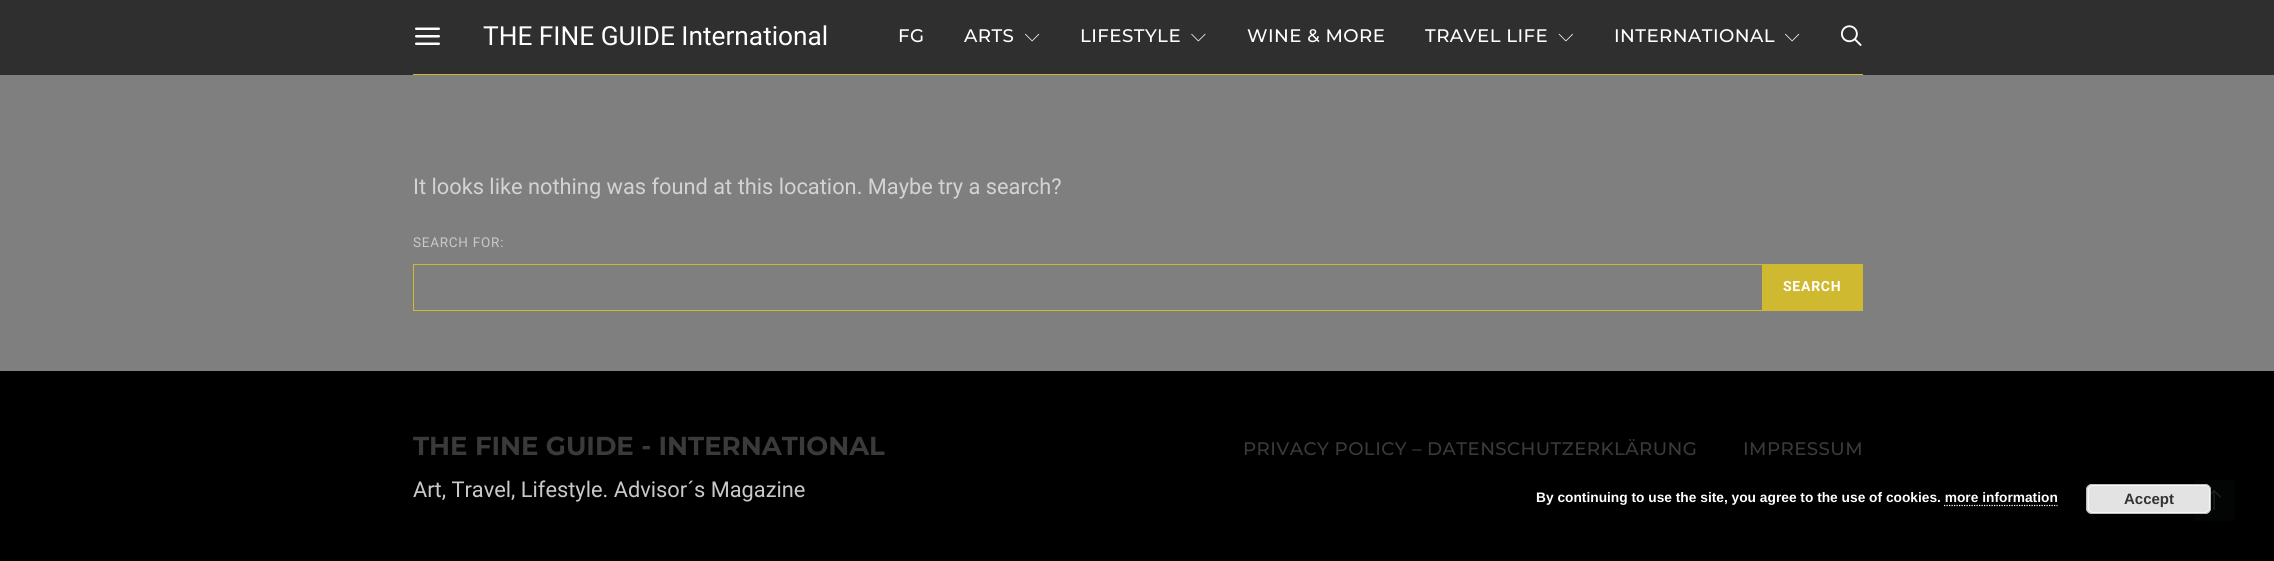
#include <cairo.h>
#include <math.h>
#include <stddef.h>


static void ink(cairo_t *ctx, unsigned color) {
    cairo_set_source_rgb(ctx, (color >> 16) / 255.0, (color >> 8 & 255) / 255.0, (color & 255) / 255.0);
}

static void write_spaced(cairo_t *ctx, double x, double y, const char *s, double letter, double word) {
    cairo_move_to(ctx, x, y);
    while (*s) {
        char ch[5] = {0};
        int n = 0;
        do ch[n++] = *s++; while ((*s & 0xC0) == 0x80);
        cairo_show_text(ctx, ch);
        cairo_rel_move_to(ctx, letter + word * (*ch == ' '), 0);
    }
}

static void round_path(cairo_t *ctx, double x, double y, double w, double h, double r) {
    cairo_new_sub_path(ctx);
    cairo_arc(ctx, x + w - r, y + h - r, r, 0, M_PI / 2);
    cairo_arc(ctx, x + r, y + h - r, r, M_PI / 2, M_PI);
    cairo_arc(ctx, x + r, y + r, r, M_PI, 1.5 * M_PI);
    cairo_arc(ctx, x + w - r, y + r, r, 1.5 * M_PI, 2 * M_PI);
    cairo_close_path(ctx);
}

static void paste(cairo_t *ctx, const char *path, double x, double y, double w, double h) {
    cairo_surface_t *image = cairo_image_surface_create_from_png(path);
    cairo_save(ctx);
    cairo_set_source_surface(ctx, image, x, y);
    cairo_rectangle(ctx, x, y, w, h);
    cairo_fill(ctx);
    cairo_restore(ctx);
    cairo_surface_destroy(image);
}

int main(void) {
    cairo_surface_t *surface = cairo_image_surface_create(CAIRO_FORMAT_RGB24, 2274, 561);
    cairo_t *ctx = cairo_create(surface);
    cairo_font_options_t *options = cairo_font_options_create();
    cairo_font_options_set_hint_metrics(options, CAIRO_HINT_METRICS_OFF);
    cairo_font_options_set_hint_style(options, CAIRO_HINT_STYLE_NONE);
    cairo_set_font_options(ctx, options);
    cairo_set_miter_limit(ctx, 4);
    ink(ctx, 0x7F7F7F);
    cairo_paint(ctx);
    ink(ctx, 0x302F30);
    cairo_rectangle(ctx, 0, 0, 2274, 75);
    cairo_fill(ctx);
    ink(ctx, 0xCEB931);
    cairo_rectangle(ctx, 413, 74, 1450, 1);
    cairo_fill(ctx);
    paste(ctx, "media/1.png", 415, 27, 25, 18);
    cairo_select_font_face(ctx, "Roboto", CAIRO_FONT_SLANT_NORMAL, CAIRO_FONT_WEIGHT_NORMAL);
    cairo_set_font_size(ctx, 26.25);
    ink(ctx, 0xFFFFFF);
    cairo_move_to(ctx, 483, 45);
    cairo_show_text(ctx, "THE FINE GUIDE International");
    cairo_select_font_face(ctx, "Montserrat Medium", CAIRO_FONT_SLANT_NORMAL, CAIRO_FONT_WEIGHT_NORMAL);
    cairo_set_font_size(ctx, 18.2);
    write_spaced(ctx, 898, 42, "FG", 0.45, 0);
    write_spaced(ctx, 964, 42, "ARTS", 0.45, 0);
    paste(ctx, "media/2.png", 1025, 33, 15, 9);
    write_spaced(ctx, 1080, 42, "LIFESTYLE", 0.45, 0);
    paste(ctx, "media/3.png", 1191, 33, 15, 9);
    write_spaced(ctx, 1247, 42, "WINE & MORE", 0.45, 0);
    write_spaced(ctx, 1425, 42, "TRAVEL LIFE", 0.45, 0);
    paste(ctx, "media/4.png", 1558, 33, 15, 9);
    write_spaced(ctx, 1614, 42, "INTERNATIONAL", 0.45, 0);
    paste(ctx, "media/2.png", 1785, 33, 15, 9);
    paste(ctx, "media/5.png", 1840, 25, 22, 21);
    cairo_select_font_face(ctx, "Roboto", CAIRO_FONT_SLANT_NORMAL, CAIRO_FONT_WEIGHT_NORMAL);
    cairo_set_font_size(ctx, 21.8);
    ink(ctx, 0xD3D3D3);
    cairo_move_to(ctx, 413, 194);
    cairo_show_text(ctx, "It looks like nothing was found at this location. Maybe try a search?");
    cairo_set_font_size(ctx, 13.5);
    ink(ctx, 0xC9C9C9);
    write_spaced(ctx, 413, 247, "SEARCH FOR:", 0.75, 0);
    cairo_rectangle(ctx, 413.5, 264.5, 1349, 46);
    ink(ctx, 0xCEB931);
    cairo_set_line_width(ctx, 1);
    cairo_stroke(ctx);
    cairo_rectangle(ctx, 1763, 264, 100, 47);
    cairo_fill(ctx);
    cairo_select_font_face(ctx, "Roboto", CAIRO_FONT_SLANT_NORMAL, CAIRO_FONT_WEIGHT_BOLD);
    cairo_set_font_size(ctx, 14);
    ink(ctx, 0xFFFFFF);
    write_spaced(ctx, 1783, 291, "SEARCH", 0.75, 0);
    ink(ctx, 0x000000);
    cairo_rectangle(ctx, 0, 371, 2274, 190);
    cairo_fill(ctx);
    cairo_select_font_face(ctx, "Montserrat", CAIRO_FONT_SLANT_NORMAL, CAIRO_FONT_WEIGHT_BOLD);
    cairo_set_font_size(ctx, 26);
    ink(ctx, 0x3A3A3A);
    cairo_move_to(ctx, 413, 455);
    cairo_show_text(ctx, "THE FINE GUIDE - INTERNATIONAL");
    cairo_select_font_face(ctx, "Montserrat Medium", CAIRO_FONT_SLANT_NORMAL, CAIRO_FONT_WEIGHT_NORMAL);
    cairo_set_font_size(ctx, 18.2);
    write_spaced(ctx, 1243, 455, "PRIVACY POLICY – DATENSCHUTZERKLÄRUNG", 0.45, 0);
    write_spaced(ctx, 1743, 455, "IMPRESSUM", 0.45, 0);
    cairo_select_font_face(ctx, "Roboto", CAIRO_FONT_SLANT_NORMAL, CAIRO_FONT_WEIGHT_NORMAL);
    cairo_set_font_size(ctx, 21.8);
    ink(ctx, 0xC9C9C9);
    cairo_move_to(ctx, 413, 497);
    cairo_show_text(ctx, "Art, Travel, Lifestyle. Advisor´s Magazine");
    ink(ctx, 0x161818);
    cairo_rectangle(ctx, 2194, 480, 41, 41);
    cairo_fill(ctx);
    paste(ctx, "media/6.png", 2211, 490, 11, 21);
    cairo_set_source_rgba(ctx, 0, 0, 0, 0.85);
    round_path(ctx, 1509, 474, 729, 50, 6);
    cairo_fill(ctx);
    cairo_select_font_face(ctx, "Liberation Sans", CAIRO_FONT_SLANT_NORMAL, CAIRO_FONT_WEIGHT_BOLD);
    cairo_set_font_size(ctx, 13.75);
    ink(ctx, 0xFFFFFF);
    cairo_move_to(ctx, 1536, 502);
    cairo_show_text(ctx, "By continuing to use the site, you agree to the use of cookies. more information");
    ink(ctx, 0xE3E3E3);
    round_path(ctx, 2086, 484, 125, 30, 6);
    cairo_fill(ctx);
    round_path(ctx, 2088.5, 485.5, 121, 27, 4.5);
    ink(ctx, 0xF6F6F6);
    cairo_stroke(ctx);
    round_path(ctx, 2086.5, 484.5, 124, 29, 5.5);
    ink(ctx, 0xBBBBBB);
    cairo_stroke(ctx);
    cairo_set_font_size(ctx, 15);
    ink(ctx, 0x333333);
    cairo_move_to(ctx, 2124, 504);
    cairo_show_text(ctx, "Accept");
    cairo_new_path(ctx);
    cairo_move_to(ctx, 1944, 505.5);
    cairo_line_to(ctx, 2057.5, 505.5);
    ink(ctx, 0xFFFFFF);
    cairo_set_line_width(ctx, 1.2);
    cairo_set_dash(ctx, (double[]){1.25, 1.25}, 2, 0);
    cairo_stroke(ctx);
    cairo_surface_write_to_png(surface, "image.png");
    cairo_font_options_destroy(options);
    cairo_destroy(ctx);
    cairo_surface_destroy(surface);
    return 0;
}
